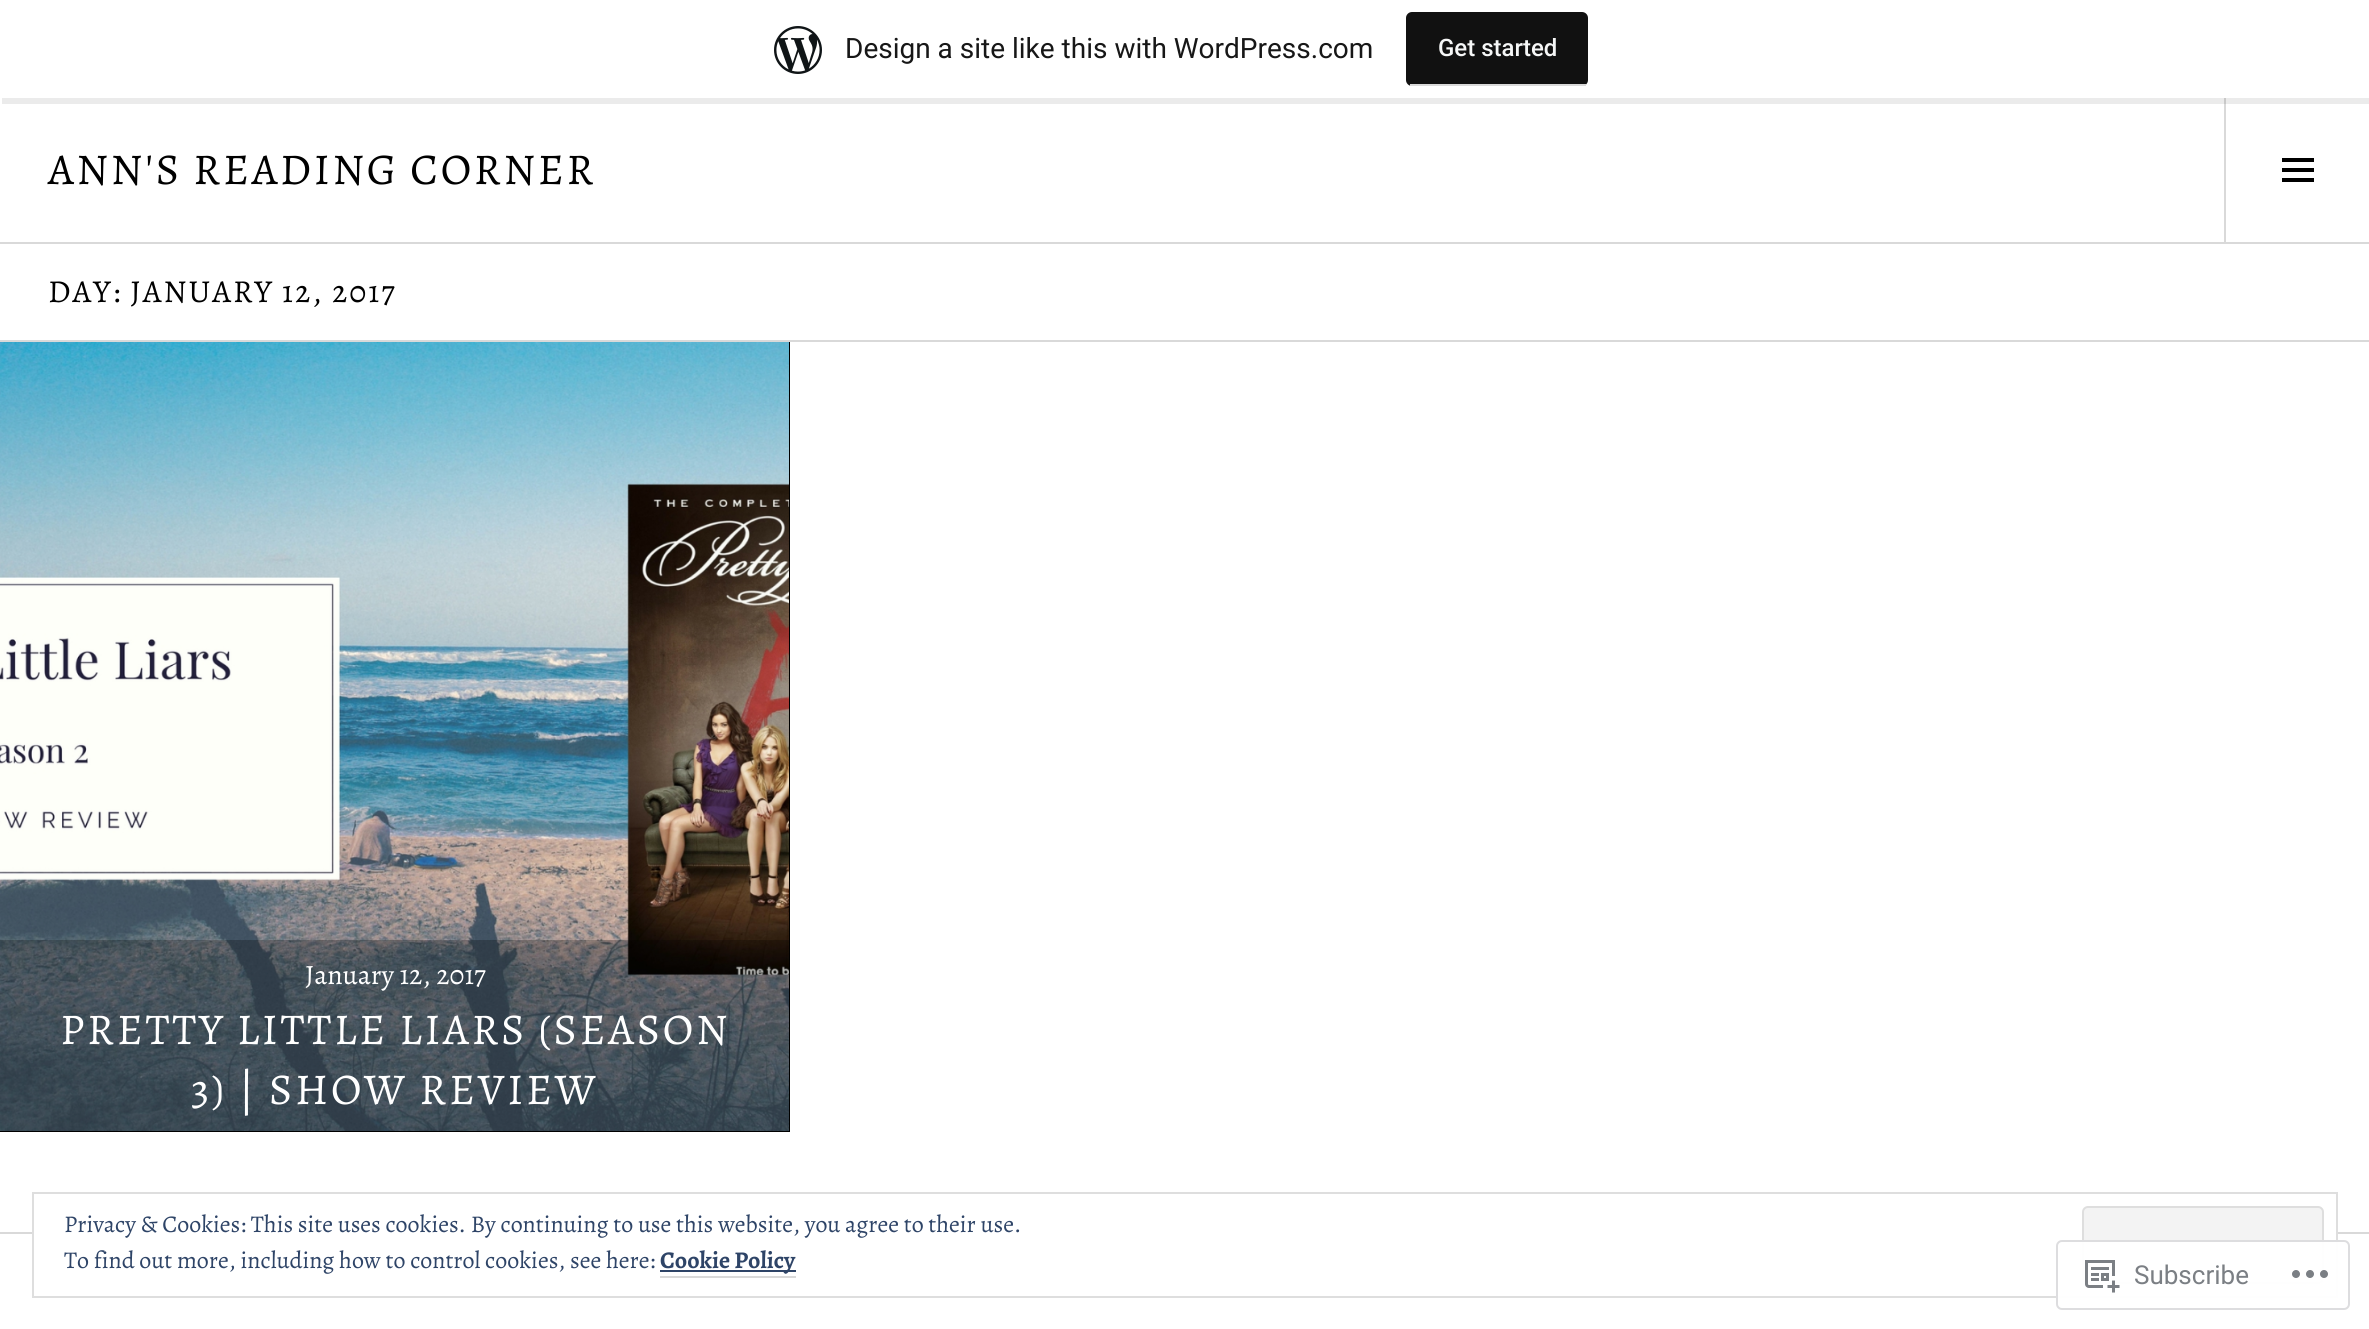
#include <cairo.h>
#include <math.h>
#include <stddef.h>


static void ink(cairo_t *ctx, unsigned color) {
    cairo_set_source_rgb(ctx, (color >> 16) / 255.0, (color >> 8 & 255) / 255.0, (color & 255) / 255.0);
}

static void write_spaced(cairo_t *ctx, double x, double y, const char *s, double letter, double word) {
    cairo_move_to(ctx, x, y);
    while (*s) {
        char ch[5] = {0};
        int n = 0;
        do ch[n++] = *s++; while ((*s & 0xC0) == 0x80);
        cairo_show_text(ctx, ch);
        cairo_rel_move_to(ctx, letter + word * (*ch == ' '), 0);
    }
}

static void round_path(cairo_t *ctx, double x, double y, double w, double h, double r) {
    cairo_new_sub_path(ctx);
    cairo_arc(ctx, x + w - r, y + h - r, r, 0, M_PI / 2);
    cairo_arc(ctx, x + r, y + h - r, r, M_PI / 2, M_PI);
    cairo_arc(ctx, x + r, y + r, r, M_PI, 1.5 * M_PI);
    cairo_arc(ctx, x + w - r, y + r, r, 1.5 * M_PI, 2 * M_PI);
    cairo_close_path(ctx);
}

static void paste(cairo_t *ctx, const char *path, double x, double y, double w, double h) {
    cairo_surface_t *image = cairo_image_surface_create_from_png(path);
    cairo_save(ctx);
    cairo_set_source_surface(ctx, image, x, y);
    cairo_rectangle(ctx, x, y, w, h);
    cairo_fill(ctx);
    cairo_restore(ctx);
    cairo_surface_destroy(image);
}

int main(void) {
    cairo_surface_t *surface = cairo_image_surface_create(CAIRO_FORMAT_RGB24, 2369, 1329);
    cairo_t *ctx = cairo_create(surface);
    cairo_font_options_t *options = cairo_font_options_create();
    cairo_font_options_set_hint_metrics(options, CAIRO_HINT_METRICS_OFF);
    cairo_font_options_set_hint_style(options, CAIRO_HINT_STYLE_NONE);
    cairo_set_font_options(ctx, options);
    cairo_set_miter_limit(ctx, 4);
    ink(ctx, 0xFFFFFF);
    cairo_paint(ctx);
    ink(ctx, 0xD9D9D9);
    cairo_rectangle(ctx, 2224, 98, 2, 144);
    cairo_fill(ctx);
    cairo_set_source_rgba(ctx, 0, 0, 0, 0.08);
    cairo_new_path(ctx);
    cairo_move_to(ctx, 2, 98);
    cairo_line_to(ctx, 2, 104);
    cairo_line_to(ctx, 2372, 104);
    cairo_line_to(ctx, 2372, 6);
    cairo_line_to(ctx, 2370, 6);
    cairo_line_to(ctx, 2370, 98);
    cairo_close_path(ctx);
    cairo_fill(ctx);
    paste(ctx, "media/1.png", 774, 26, 48, 48);
    cairo_select_font_face(ctx, "Roboto", CAIRO_FONT_SLANT_NORMAL, CAIRO_FONT_WEIGHT_NORMAL);
    cairo_set_font_size(ctx, 28);
    ink(ctx, 0x171717);
    cairo_move_to(ctx, 845, 58);
    cairo_show_text(ctx, "Design a site like this with WordPress.com");
    ink(ctx, 0x111111);
    round_path(ctx, 1406, 12, 182, 74, 6);
    cairo_fill(ctx);
    ink(ctx, 0xD9D9D9);
    cairo_rectangle(ctx, 1410, 84, 176, 2);
    cairo_fill(ctx);
    cairo_select_font_face(ctx, "Roboto Medium", CAIRO_FONT_SLANT_NORMAL, CAIRO_FONT_WEIGHT_NORMAL);
    cairo_set_font_size(ctx, 24);
    ink(ctx, 0xF6F7F7);
    cairo_move_to(ctx, 1438, 56);
    cairo_show_text(ctx, "Get started");
    ink(ctx, 0xD9D9D9);
    cairo_rectangle(ctx, 0, 242, 2369, 2);
    cairo_fill(ctx);
    cairo_select_font_face(ctx, "Alegreya", CAIRO_FONT_SLANT_NORMAL, CAIRO_FONT_WEIGHT_NORMAL);
    cairo_set_font_size(ctx, 44);
    ink(ctx, 0x000000);
    write_spaced(ctx, 48, 184, "ANN'S READING CORNER", 2.75, 0);
    paste(ctx, "media/2.png", 2282, 158, 32, 24);
    ink(ctx, 0xD9D9D9);
    cairo_rectangle(ctx, 0, 340, 2369, 2);
    cairo_fill(ctx);
    cairo_set_font_size(ctx, 32);
    ink(ctx, 0x000000);
    write_spaced(ctx, 48, 302, "DAY: JANUARY 12, 2017", 2, 0);
    cairo_rectangle(ctx, 0, 342, 790, 790);
    cairo_fill(ctx);
    paste(ctx, "media/3.png", 0, 342, 789, 789);
    cairo_set_source_rgba(ctx, 0, 0, 0, 0.25);
    cairo_rectangle(ctx, 0, 940, 789, 191);
    cairo_fill(ctx);
    cairo_set_font_size(ctx, 28);
    ink(ctx, 0xFFFFFF);
    cairo_move_to(ctx, 305, 984);
    cairo_show_text(ctx, "January 12, 2017");
    cairo_set_font_size(ctx, 44);
    write_spaced(ctx, 60, 1044, "PRETTY LITTLE LIARS (SEASON", 2.75, 0);
    write_spaced(ctx, 191, 1104, "3) | SHOW REVIEW", 2.75, 0);
    ink(ctx, 0xD9D9D9);
    cairo_rectangle(ctx, 0, 1232, 2369, 2);
    cairo_fill(ctx);
    ink(ctx, 0xFFFFFF);
    cairo_rectangle(ctx, 34, 1232, 2302, 2);
    cairo_fill(ctx);
    cairo_rectangle(ctx, 33, 1193, 2304, 104);
    ink(ctx, 0xDEDEDE);
    cairo_stroke(ctx);
    cairo_set_font_size(ctx, 24);
    ink(ctx, 0x2E4467);
    cairo_move_to(ctx, 64, 1232);
    cairo_show_text(ctx, "Privacy & Cookies: This site uses cookies. By continuing to use this website, you agree to their use.");
    ink(ctx, 0xF3F3F3);
    round_path(ctx, 2083, 1207, 240, 76, 5);
    cairo_fill_preserve(ctx);
    ink(ctx, 0xDEDEDE);
    cairo_stroke(ctx);
    ink(ctx, 0x2E4467);
    cairo_move_to(ctx, 64, 1268);
    cairo_show_text(ctx, "To find out more, including how to control cookies, see here:");
    cairo_rectangle(ctx, 660, 1270, 136, 2);
    cairo_fill(ctx);
    cairo_select_font_face(ctx, "Alegreya", CAIRO_FONT_SLANT_NORMAL, CAIRO_FONT_WEIGHT_BOLD);
    cairo_move_to(ctx, 660, 1268);
    cairo_show_text(ctx, "Cookie Policy");
    ink(ctx, 0xD9D9D9);
    cairo_rectangle(ctx, 660, 1276, 136, 2);
    cairo_fill(ctx);
    cairo_set_source_rgba(ctx, 1, 1, 1, 0.98);
    round_path(ctx, 2056, 1240, 294, 70, 6);
    cairo_fill(ctx);
    round_path(ctx, 2057, 1241, 292, 68, 5);
    cairo_set_source_rgba(ctx, 0.863, 0.863, 0.871, 0.98);
    cairo_stroke(ctx);
    paste(ctx, "media/4.png", 2085, 1260, 35, 33);
    cairo_select_font_face(ctx, "Roboto", CAIRO_FONT_SLANT_NORMAL, CAIRO_FONT_WEIGHT_NORMAL);
    cairo_set_font_size(ctx, 26);
    ink(ctx, 0x7B7F84);
    cairo_move_to(ctx, 2134, 1284);
    cairo_show_text(ctx, "Subscribe");
    paste(ctx, "media/5.png", 2292, 1270, 36, 8);
    cairo_surface_write_to_png(surface, "image.png");
    cairo_font_options_destroy(options);
    cairo_destroy(ctx);
    cairo_surface_destroy(surface);
    return 0;
}
